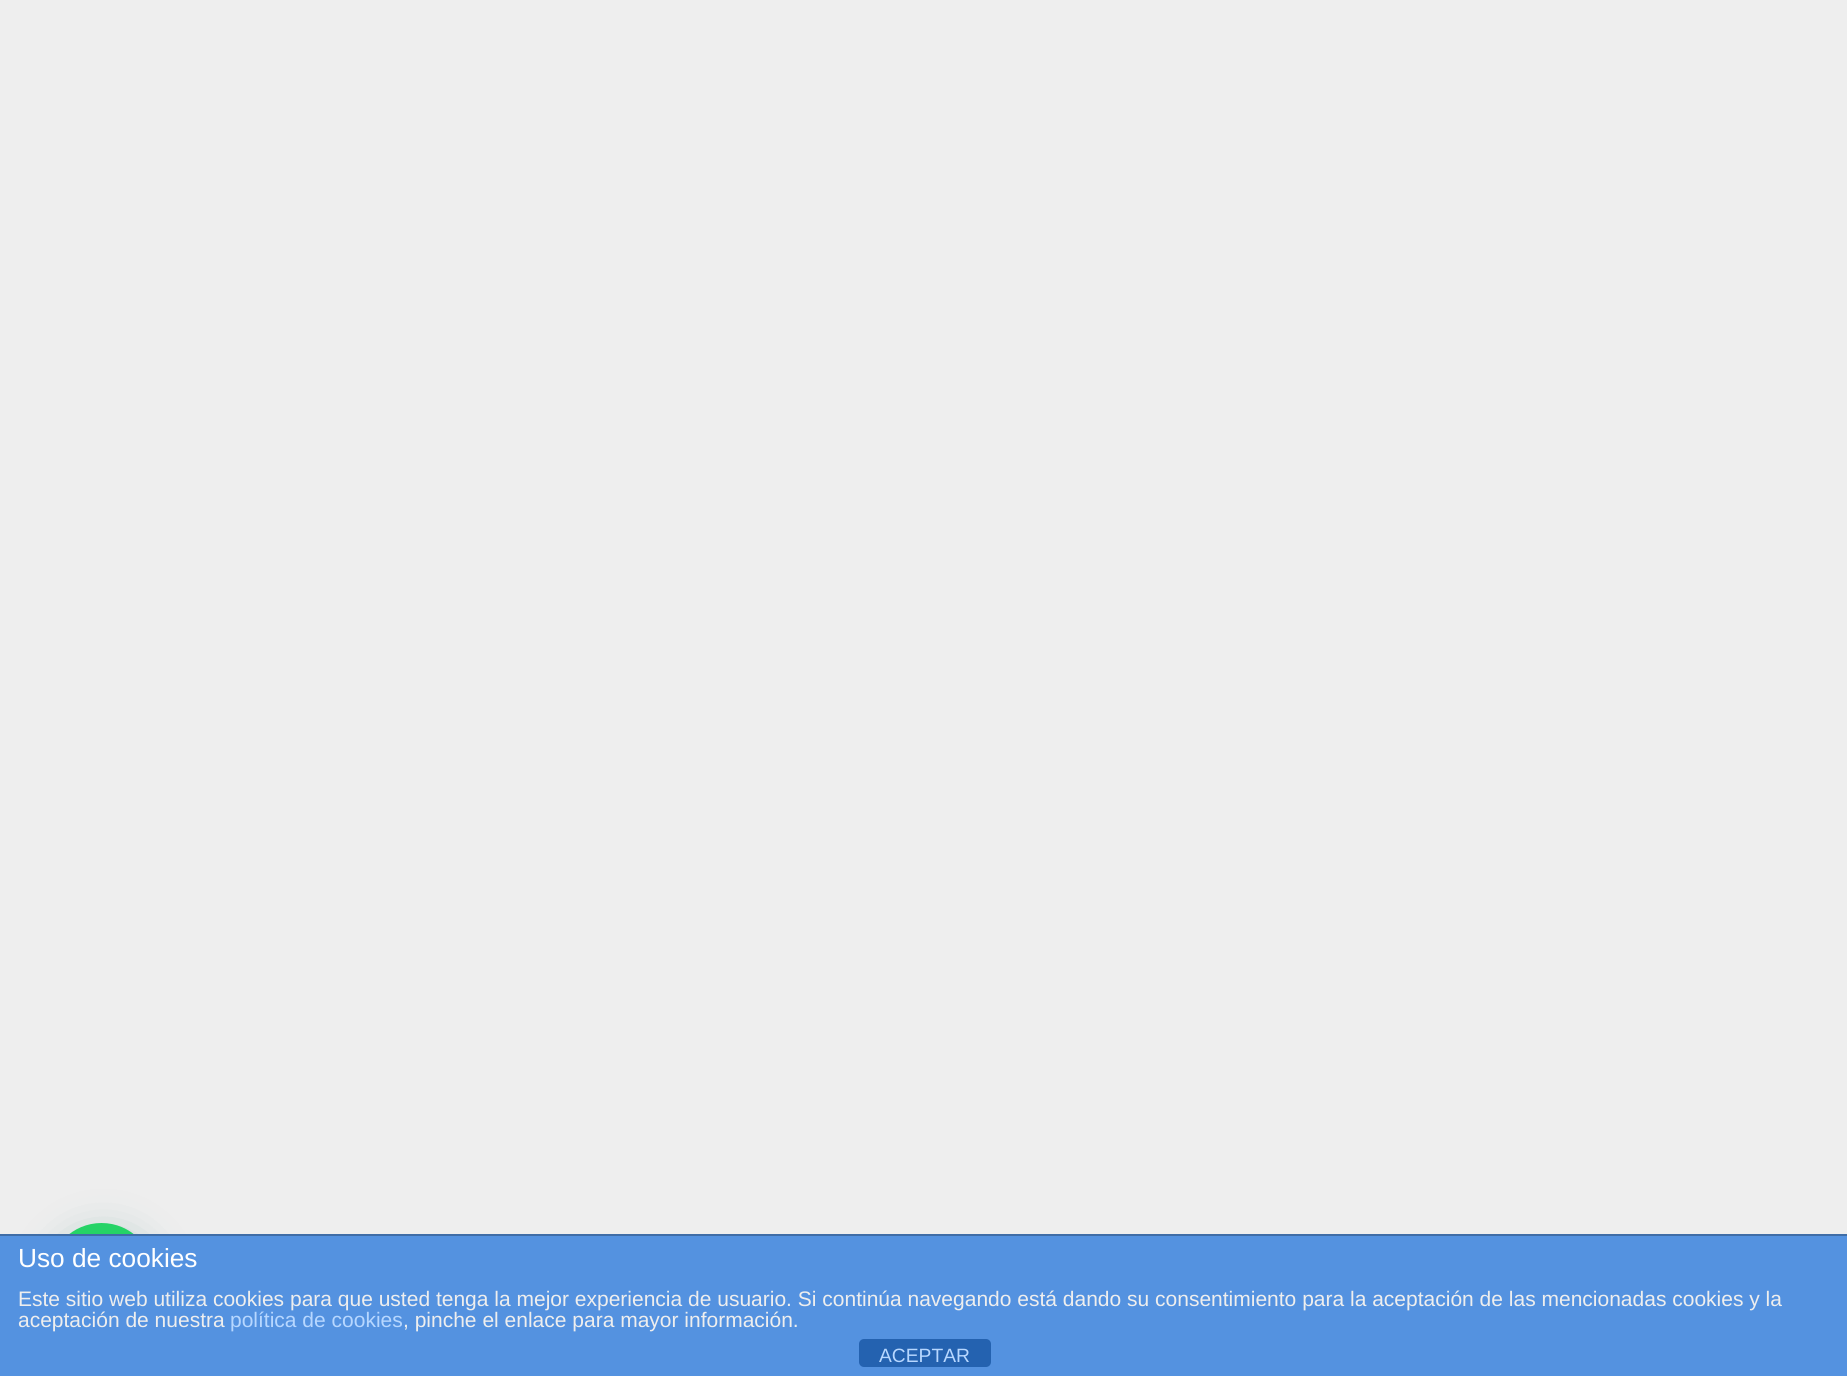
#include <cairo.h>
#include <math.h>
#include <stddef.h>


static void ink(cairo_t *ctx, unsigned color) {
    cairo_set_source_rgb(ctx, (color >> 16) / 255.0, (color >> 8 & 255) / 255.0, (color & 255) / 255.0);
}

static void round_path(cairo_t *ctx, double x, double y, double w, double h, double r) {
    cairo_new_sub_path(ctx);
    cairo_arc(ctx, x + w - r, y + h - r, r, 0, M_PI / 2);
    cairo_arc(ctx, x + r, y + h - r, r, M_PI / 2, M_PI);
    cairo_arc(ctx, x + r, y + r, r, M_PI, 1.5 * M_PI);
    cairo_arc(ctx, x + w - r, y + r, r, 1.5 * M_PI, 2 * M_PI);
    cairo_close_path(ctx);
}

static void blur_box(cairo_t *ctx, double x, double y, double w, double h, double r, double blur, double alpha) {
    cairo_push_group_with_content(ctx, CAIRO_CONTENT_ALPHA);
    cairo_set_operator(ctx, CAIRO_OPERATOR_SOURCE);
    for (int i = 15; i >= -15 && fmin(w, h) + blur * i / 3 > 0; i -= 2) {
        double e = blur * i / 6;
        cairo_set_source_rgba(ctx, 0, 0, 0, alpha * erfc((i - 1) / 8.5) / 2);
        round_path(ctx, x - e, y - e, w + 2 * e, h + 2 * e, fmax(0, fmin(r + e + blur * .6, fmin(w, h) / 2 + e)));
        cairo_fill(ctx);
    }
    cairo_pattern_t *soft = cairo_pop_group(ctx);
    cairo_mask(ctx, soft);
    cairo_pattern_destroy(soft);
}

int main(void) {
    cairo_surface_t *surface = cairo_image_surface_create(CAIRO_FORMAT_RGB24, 1847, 1376);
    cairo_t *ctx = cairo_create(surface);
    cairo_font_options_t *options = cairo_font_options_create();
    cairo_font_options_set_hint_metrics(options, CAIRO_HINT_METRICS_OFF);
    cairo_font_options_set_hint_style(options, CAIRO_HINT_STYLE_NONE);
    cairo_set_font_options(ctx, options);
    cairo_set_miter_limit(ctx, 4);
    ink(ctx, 0xEEEEEE);
    cairo_paint(ctx);
    ink(ctx, 0x075E54);
    blur_box(ctx, 51, 1234, 105, 105, 52.5, 21, 0.24);
    ink(ctx, 0x25D366);
    cairo_arc(ctx, 101.5, 1275.5, 52.5, 0, 2 * M_PI);
    cairo_fill(ctx);
    ink(ctx, 0x5492E0);
    cairo_rectangle(ctx, 0, 1236, 1847, 140);
    cairo_fill(ctx);
    ink(ctx, 0x3F6DA7);
    cairo_rectangle(ctx, 0, 1234, 1847, 2);
    cairo_fill(ctx);
    cairo_select_font_face(ctx, "Liberation Sans", CAIRO_FONT_SLANT_NORMAL, CAIRO_FONT_WEIGHT_NORMAL);
    cairo_set_font_size(ctx, 26.25);
    ink(ctx, 0xFFFFFF);
    cairo_move_to(ctx, 18, 1267);
    cairo_show_text(ctx, "Uso de cookies");
    cairo_set_font_size(ctx, 21);
    ink(ctx, 0xEEEEEE);
    cairo_move_to(ctx, 18, 1306);
    cairo_show_text(ctx, "Este sitio web utiliza cookies para que usted tenga la mejor experiencia de usuario. Si continúa navegando está dando su consentimiento para la aceptación de las mencionadas cookies y la");
    cairo_move_to(ctx, 18, 1327);
    cairo_show_text(ctx, "aceptación de nuestra");
    ink(ctx, 0xB7D7FF);
    cairo_move_to(ctx, 230, 1327);
    cairo_show_text(ctx, "política de cookies");
    ink(ctx, 0xEEEEEE);
    cairo_move_to(ctx, 403, 1327);
    cairo_show_text(ctx, ", pinche el enlace para mayor información.");
    ink(ctx, 0x2462B0);
    round_path(ctx, 859, 1339, 132, 28, 5);
    cairo_fill(ctx);
    cairo_set_font_size(ctx, 19.25);
    ink(ctx, 0xB7D7FF);
    cairo_move_to(ctx, 879, 1362);
    cairo_show_text(ctx, "ACEPTAR");
    cairo_surface_write_to_png(surface, "image.png");
    cairo_font_options_destroy(options);
    cairo_destroy(ctx);
    cairo_surface_destroy(surface);
    return 0;
}
